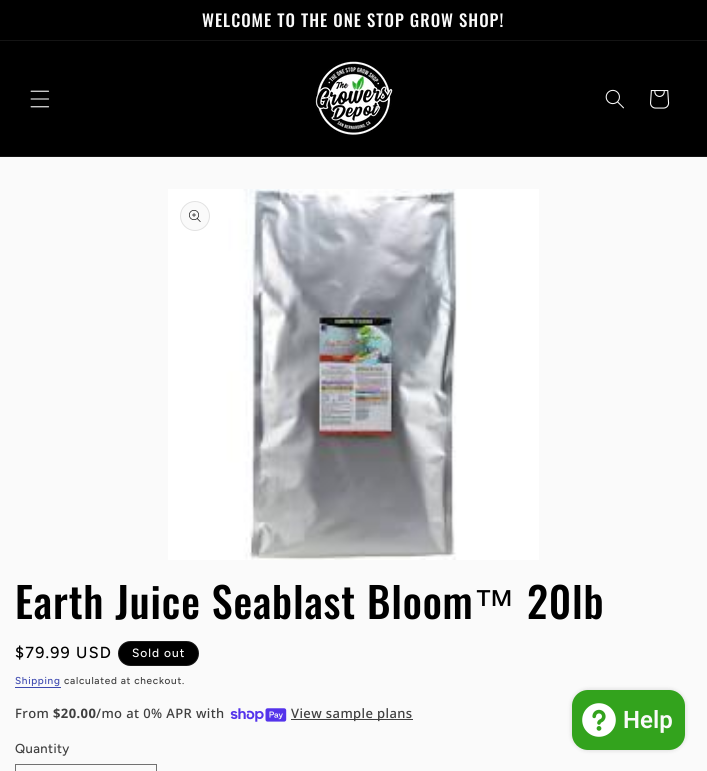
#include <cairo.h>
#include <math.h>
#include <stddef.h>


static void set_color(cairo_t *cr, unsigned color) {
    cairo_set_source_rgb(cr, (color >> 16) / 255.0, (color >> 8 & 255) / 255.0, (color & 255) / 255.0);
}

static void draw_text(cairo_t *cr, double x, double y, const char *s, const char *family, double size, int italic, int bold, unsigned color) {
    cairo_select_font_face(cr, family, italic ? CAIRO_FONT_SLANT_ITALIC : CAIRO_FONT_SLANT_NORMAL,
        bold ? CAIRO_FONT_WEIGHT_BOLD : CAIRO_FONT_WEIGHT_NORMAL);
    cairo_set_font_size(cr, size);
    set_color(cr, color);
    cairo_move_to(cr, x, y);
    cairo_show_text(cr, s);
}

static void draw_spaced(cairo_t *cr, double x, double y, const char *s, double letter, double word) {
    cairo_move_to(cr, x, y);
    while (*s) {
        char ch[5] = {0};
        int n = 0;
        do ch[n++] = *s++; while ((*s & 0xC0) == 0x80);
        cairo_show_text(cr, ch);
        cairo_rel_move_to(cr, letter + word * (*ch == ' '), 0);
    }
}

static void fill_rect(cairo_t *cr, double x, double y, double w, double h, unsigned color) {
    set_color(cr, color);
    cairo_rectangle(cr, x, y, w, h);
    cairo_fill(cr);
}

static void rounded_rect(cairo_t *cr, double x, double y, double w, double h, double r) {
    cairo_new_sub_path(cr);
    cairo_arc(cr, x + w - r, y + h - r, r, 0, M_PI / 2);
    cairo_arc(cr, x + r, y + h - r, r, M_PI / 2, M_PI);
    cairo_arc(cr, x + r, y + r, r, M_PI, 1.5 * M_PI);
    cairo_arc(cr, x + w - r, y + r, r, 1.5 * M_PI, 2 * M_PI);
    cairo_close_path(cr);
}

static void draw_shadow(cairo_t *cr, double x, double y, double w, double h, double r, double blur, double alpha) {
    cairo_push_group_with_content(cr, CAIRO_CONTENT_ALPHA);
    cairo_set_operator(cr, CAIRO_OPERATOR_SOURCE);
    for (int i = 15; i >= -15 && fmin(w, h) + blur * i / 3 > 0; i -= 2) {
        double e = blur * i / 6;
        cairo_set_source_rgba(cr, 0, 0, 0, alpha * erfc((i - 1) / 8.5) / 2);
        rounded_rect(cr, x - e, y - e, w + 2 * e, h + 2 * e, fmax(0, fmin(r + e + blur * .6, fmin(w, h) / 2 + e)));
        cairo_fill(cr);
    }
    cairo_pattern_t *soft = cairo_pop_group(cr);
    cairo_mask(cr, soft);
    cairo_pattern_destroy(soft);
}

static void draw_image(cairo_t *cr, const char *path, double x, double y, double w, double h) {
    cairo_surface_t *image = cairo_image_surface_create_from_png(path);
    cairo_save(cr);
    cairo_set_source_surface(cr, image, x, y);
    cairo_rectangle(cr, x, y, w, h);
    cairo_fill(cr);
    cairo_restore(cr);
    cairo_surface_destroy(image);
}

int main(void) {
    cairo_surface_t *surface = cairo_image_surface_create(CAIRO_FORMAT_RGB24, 707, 771);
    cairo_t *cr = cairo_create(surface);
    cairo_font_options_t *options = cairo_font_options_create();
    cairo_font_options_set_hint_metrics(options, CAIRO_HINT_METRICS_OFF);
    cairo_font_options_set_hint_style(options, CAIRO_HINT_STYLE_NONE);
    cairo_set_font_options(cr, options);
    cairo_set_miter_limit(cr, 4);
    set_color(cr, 0xFAFAFA);
    cairo_paint(cr);
    fill_rect(cr, 0, 0, 707, 40, 0x000000);
    fill_rect(cr, 0, 40, 707, 1, 0x141414);
    cairo_select_font_face(cr, "Oswald Medium", CAIRO_FONT_SLANT_NORMAL, CAIRO_FONT_WEIGHT_NORMAL);
    cairo_set_font_size(cr, 16.75);
    set_color(cr, 0xFAFAFA);
    draw_spaced(cr, 202, 27, "WELCOME TO THE ONE STOP GROW SHOP!", 1, 0);
    fill_rect(cr, 0, 41, 707, 115, 0x000000);
    fill_rect(cr, 0, 156, 707, 1, 0x141414);
    draw_image(cr, "assets/img1.png", 30, 90, 20, 18);
    draw_image(cr, "assets/img2.png", 315, 61, 78, 74);
    draw_image(cr, "assets/img3.png", 605, 89, 19, 20);
    draw_image(cr, "assets/img4.png", 650, 90, 20, 19);
    draw_image(cr, "assets/img5.png", 168, 189, 371, 371);
    set_color(cr, 0xFAFAFA);
    cairo_arc(cr, 195, 216, 14.5, 0, 2 * M_PI);
    cairo_fill_preserve(cr);
    set_color(cr, 0xE2E2E2);
    cairo_set_line_width(cr, 1);
    cairo_stroke(cr);
    draw_image(cr, "assets/img6.png", 189, 210, 12, 12);
    cairo_set_font_size(cr, 42);
    set_color(cr, 0x000000);
    draw_spaced(cr, 15, 619, "Earth Juice Seablast Bloom", 0.85, 0);
    cairo_select_font_face(cr, "Liberation Sans", CAIRO_FONT_SLANT_NORMAL, CAIRO_FONT_WEIGHT_NORMAL);
    draw_spaced(cr, 473, 619, "™", 0.85, 0);
    cairo_select_font_face(cr, "Oswald Medium", CAIRO_FONT_SLANT_NORMAL, CAIRO_FONT_WEIGHT_NORMAL);
    draw_spaced(cr, 527, 619, "20lb", 0.85, 0);
    cairo_select_font_face(cr, "Figtree Medium", CAIRO_FONT_SLANT_NORMAL, CAIRO_FONT_WEIGHT_NORMAL);
    cairo_set_font_size(cr, 16);
    draw_spaced(cr, 15, 658, "$79.99 USD", 1.25, 0);
    rounded_rect(cr, 118, 641, 81, 25, 12.5);
    cairo_fill(cr);
    rounded_rect(cr, 118.5, 641.5, 80, 24, 12);
    cairo_set_source_rgba(cr, 0.98, 0.98, 0.98, 0.1);
    cairo_stroke(cr);
    cairo_set_font_size(cr, 12);
    set_color(cr, 0xFAFAFA);
    draw_spaced(cr, 132, 657, "Sold out", 1, 0);
    cairo_set_font_size(cr, 10);
    set_color(cr, 0x3E4AB0);
    draw_spaced(cr, 15, 684, "Shipping", 0.7, 0);
    fill_rect(cr, 15, 687, 46, 1, 0x3E4AB0);
    set_color(cr, 0x3F3F3F);
    draw_spaced(cr, 64, 684, "calculated at checkout.", 0.7, 0);
    cairo_select_font_face(cr, "Noto Sans Medium", CAIRO_FONT_SLANT_NORMAL, CAIRO_FONT_WEIGHT_NORMAL);
    cairo_set_font_size(cr, 13);
    draw_spaced(cr, 15, 718, "From", 0.4, 0);
    cairo_select_font_face(cr, "Noto Sans", CAIRO_FONT_SLANT_NORMAL, CAIRO_FONT_WEIGHT_BOLD);
    draw_spaced(cr, 53, 718, "$20.00", 0.4, 0);
    cairo_select_font_face(cr, "Noto Sans Medium", CAIRO_FONT_SLANT_NORMAL, CAIRO_FONT_WEIGHT_NORMAL);
    draw_spaced(cr, 96, 718, "/mo at 0% APR with", 0.4, 0);
    draw_image(cr, "assets/img7.png", 230, 708, 57, 14);
    fill_rect(cr, 291, 719, 122, 1, 0x3F3F3F);
    draw_spaced(cr, 291, 718, "View sample plans", 0.4, 0);
    cairo_select_font_face(cr, "Figtree Medium", CAIRO_FONT_SLANT_NORMAL, CAIRO_FONT_WEIGHT_NORMAL);
    draw_spaced(cr, 15, 753, "Quantity", 0.4, 0);
    cairo_rectangle(cr, 15.5, 764.5, 141, 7);
    set_color(cr, 0x717171);
    cairo_stroke(cr);
    set_color(cr, 0x000000);
    draw_shadow(cr, 572, 690, 113, 60, 16, 2.5, 0.15);
    set_color(cr, 0x33A31D);
    rounded_rect(cr, 572, 690, 113, 60, 16);
    cairo_fill(cr);
    draw_image(cr, "assets/img8.png", 582, 703, 34, 34);
    draw_text(cr, 623, 728, "Help", "Roboto SemiBold", 24, 0, 0, 0xFAFAFA);
    cairo_surface_write_to_png(surface, "output.png");
    cairo_font_options_destroy(options);
    cairo_destroy(cr);
    cairo_surface_destroy(surface);
    return 0;
}
